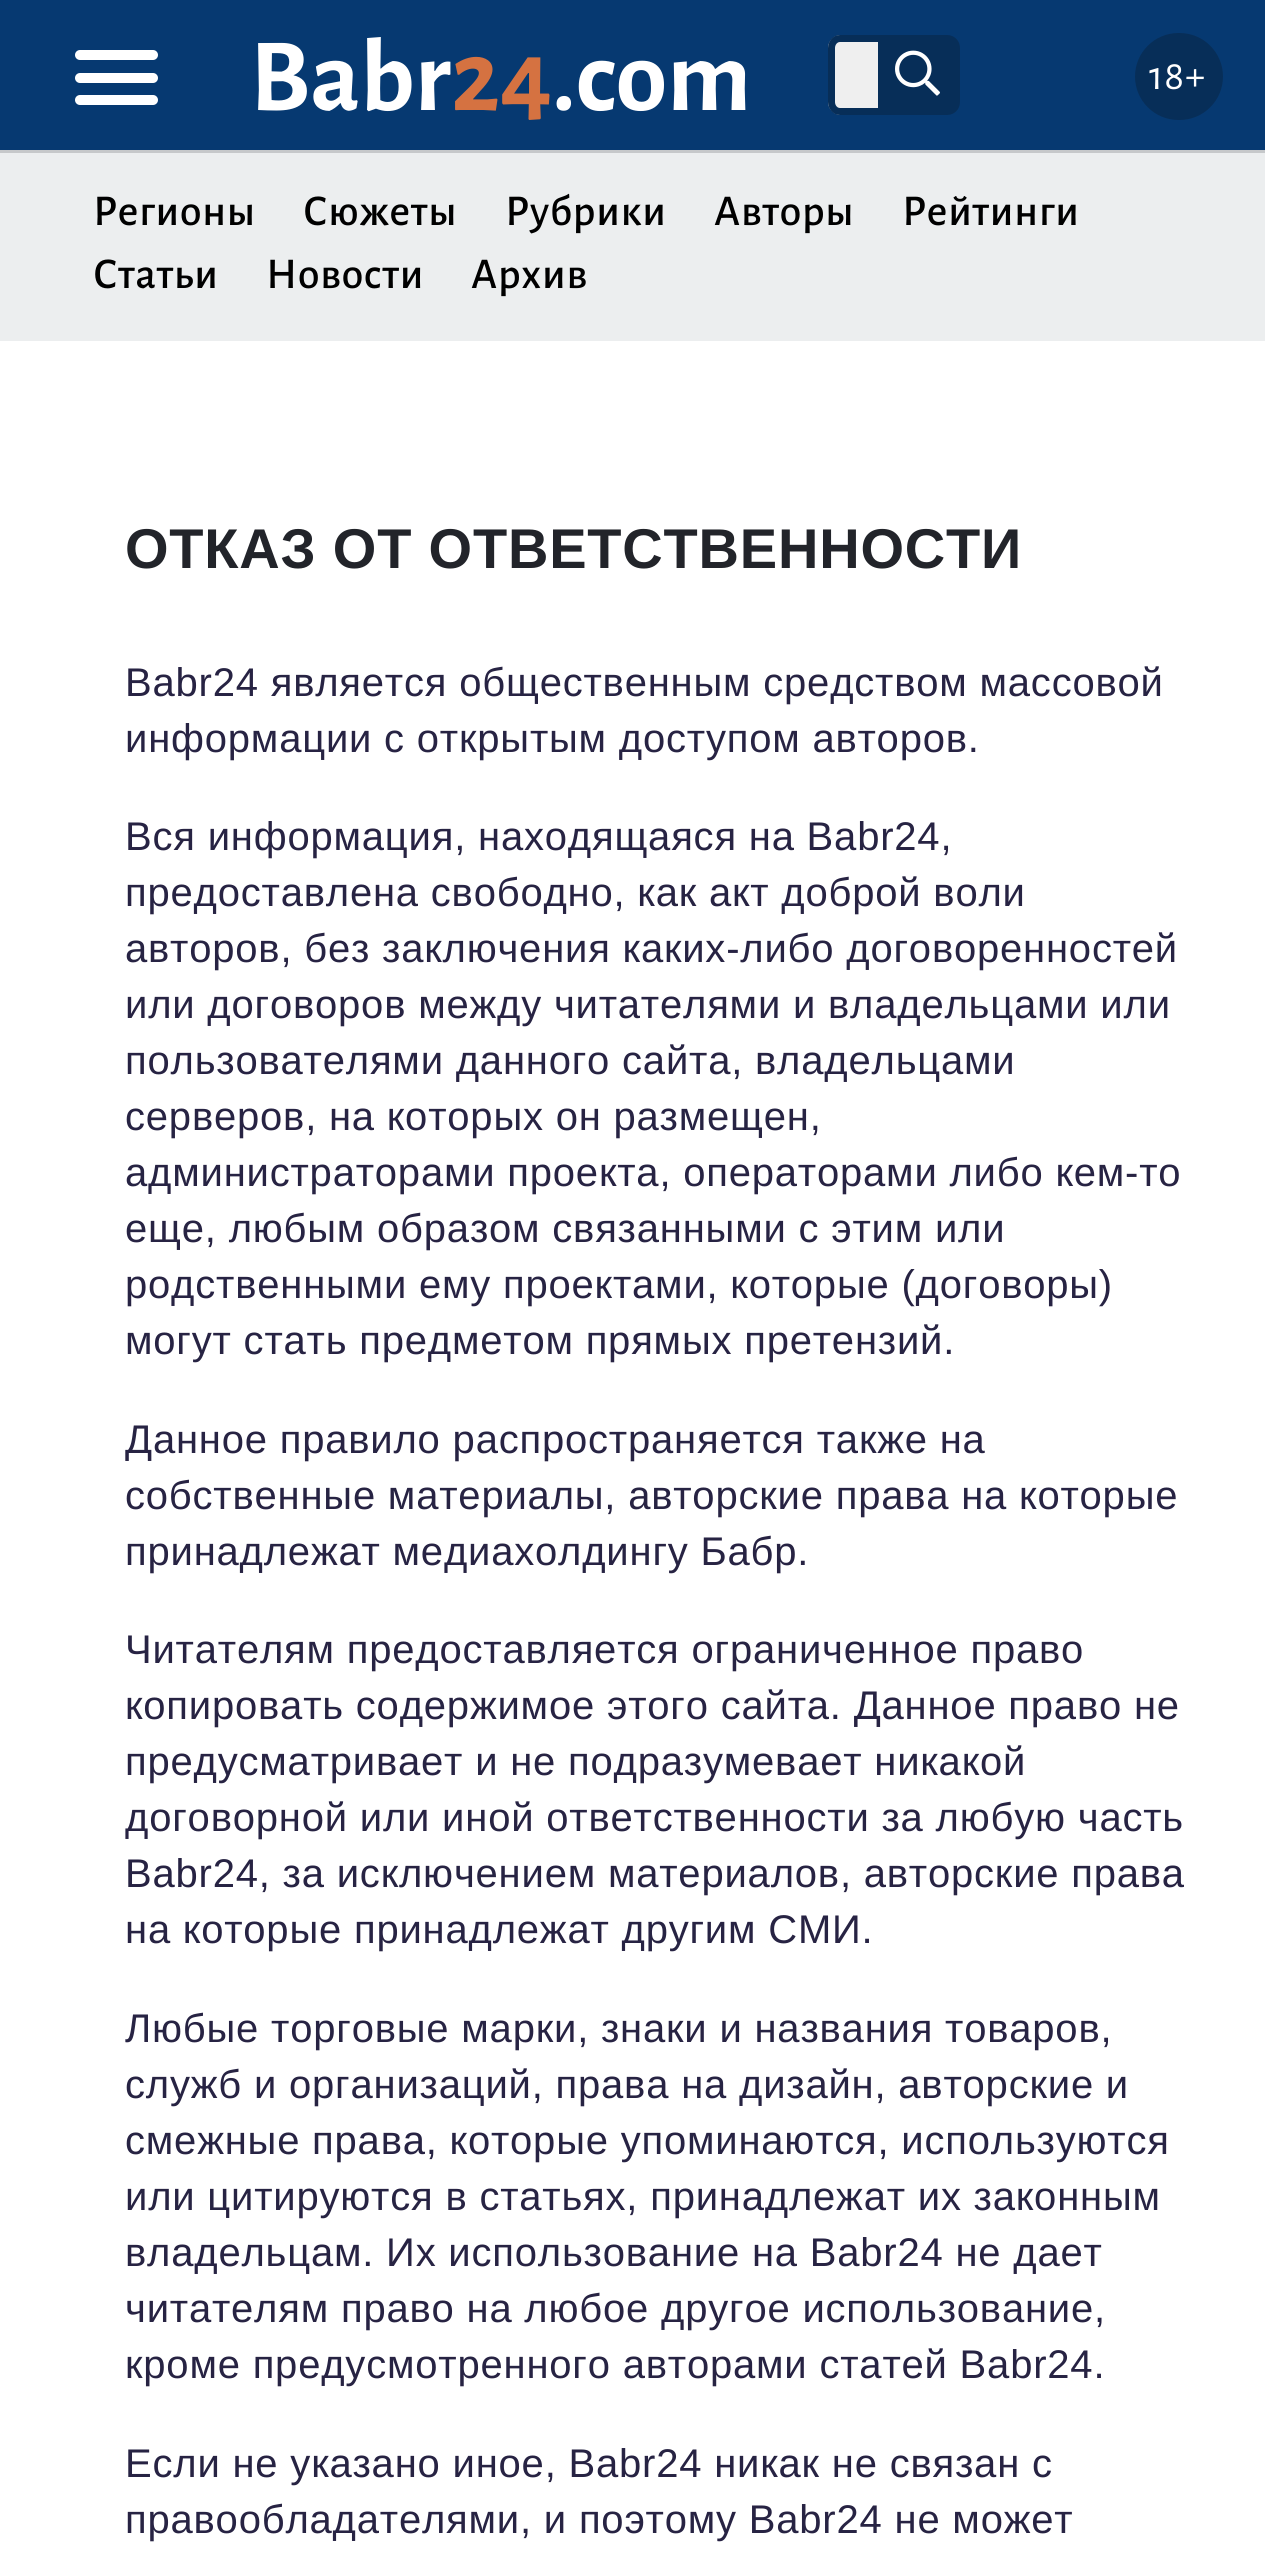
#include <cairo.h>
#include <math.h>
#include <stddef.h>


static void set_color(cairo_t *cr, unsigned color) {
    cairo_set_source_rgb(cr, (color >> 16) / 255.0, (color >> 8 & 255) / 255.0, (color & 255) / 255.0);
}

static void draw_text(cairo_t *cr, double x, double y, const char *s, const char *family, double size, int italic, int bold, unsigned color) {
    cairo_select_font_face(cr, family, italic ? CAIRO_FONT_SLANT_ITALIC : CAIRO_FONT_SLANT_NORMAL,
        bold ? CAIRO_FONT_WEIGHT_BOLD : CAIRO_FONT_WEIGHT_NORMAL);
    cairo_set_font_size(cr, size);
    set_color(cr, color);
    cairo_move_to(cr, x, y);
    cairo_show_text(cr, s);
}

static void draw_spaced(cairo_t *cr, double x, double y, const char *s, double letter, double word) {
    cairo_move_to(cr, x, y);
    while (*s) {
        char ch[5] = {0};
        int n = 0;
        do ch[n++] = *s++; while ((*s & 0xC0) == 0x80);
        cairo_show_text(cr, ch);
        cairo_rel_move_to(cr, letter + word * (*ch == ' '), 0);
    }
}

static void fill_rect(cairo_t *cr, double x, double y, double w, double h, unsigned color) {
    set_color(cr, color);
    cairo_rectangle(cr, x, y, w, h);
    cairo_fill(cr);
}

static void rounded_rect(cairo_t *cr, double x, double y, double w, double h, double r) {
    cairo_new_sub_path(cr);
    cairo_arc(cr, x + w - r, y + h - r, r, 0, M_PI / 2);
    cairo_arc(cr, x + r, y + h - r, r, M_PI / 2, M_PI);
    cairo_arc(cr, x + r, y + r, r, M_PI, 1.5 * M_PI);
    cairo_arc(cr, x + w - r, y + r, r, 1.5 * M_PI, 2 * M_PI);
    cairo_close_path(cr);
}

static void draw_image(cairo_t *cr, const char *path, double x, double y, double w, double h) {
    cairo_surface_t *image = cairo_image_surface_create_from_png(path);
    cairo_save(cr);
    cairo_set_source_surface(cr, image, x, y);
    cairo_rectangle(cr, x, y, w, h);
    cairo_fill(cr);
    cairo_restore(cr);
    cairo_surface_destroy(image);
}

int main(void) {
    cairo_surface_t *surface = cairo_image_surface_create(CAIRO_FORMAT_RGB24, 1265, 2551);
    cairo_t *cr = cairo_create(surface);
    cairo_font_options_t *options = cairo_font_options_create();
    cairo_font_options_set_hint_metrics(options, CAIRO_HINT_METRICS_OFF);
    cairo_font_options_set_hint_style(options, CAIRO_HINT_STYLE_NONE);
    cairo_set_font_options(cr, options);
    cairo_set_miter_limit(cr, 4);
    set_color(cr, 0xECEEEF);
    cairo_paint(cr);
    fill_rect(cr, 0, 0, 1265, 150, 0x063971);
    set_color(cr, 0xFFFFFF);
    rounded_rect(cr, 75, 50, 83, 10, 5);
    cairo_fill(cr);
    rounded_rect(cr, 75, 73, 83, 10, 5);
    cairo_fill(cr);
    rounded_rect(cr, 75, 95, 83, 10, 5);
    cairo_fill(cr);
    draw_text(cr, 250, 110, "Babr", "Alegreya Sans", 104, 0, 1, 0xFFFFFF);
    draw_text(cr, 451, 110, "24", "Alegreya Sans", 104, 0, 1, 0xD57241);
    draw_text(cr, 552, 110, ".com", "Alegreya Sans", 104, 0, 1, 0xFFFFFF);
    set_color(cr, 0xEFEFEF);
    cairo_new_path(cr);
    cairo_move_to(cr, 841, 35);
    cairo_line_to(cr, 878, 35);
    cairo_line_to(cr, 878, 115);
    cairo_line_to(cr, 841, 115);
    cairo_curve_to(cr, 834, 115, 828, 109, 828, 102);
    cairo_line_to(cr, 828, 48);
    cairo_curve_to(cr, 828, 41, 834, 35, 841, 35);
    cairo_close_path(cr);
    cairo_fill(cr);
    set_color(cr, 0x072E58);
    cairo_set_fill_rule(cr, CAIRO_FILL_RULE_EVEN_ODD);
    cairo_new_path(cr);
    cairo_move_to(cr, 840, 35);
    cairo_line_to(cr, 878, 35);
    cairo_line_to(cr, 878, 115);
    cairo_line_to(cr, 840, 115);
    cairo_curve_to(cr, 833, 115, 828, 109, 828, 102);
    cairo_line_to(cr, 828, 48);
    cairo_curve_to(cr, 828, 41, 833, 35, 840, 35);
    cairo_close_path(cr);
    cairo_move_to(cr, 840, 42);
    cairo_line_to(cr, 878, 42);
    cairo_line_to(cr, 878, 108);
    cairo_line_to(cr, 840, 108);
    cairo_curve_to(cr, 837, 108, 835, 105, 835, 102);
    cairo_line_to(cr, 835, 48);
    cairo_curve_to(cr, 835, 45, 837, 42, 840, 42);
    cairo_close_path(cr);
    cairo_fill(cr);
    cairo_new_path(cr);
    cairo_move_to(cr, 879.5, 36.5);
    cairo_line_to(cr, 947, 36.5);
    cairo_curve_to(cr, 953.5, 36.5, 958.5, 41.5, 958.5, 48);
    cairo_line_to(cr, 958.5, 102);
    cairo_curve_to(cr, 958.5, 108.5, 953.5, 113.5, 947, 113.5);
    cairo_line_to(cr, 879.5, 113.5);
    cairo_close_path(cr);
    cairo_fill_preserve(cr);
    cairo_set_line_width(cr, 3);
    cairo_stroke(cr);
    draw_image(cr, "assets/img1.png", 895, 50, 45, 46);
    rounded_rect(cr, 1135, 33, 88, 87, 43.5);
    cairo_fill(cr);
    cairo_select_font_face(cr, "Alegreya Sans", CAIRO_FONT_SLANT_NORMAL, CAIRO_FONT_WEIGHT_NORMAL);
    cairo_set_font_size(cr, 42);
    set_color(cr, 0xFFFFFF);
    draw_spaced(cr, 1149, 89, "18+", 0.8, 0);
    fill_rect(cr, 0, 150, 1265, 3, 0xC6C8CA);
    cairo_select_font_face(cr, "Alegreya Sans Medium", CAIRO_FONT_SLANT_NORMAL, CAIRO_FONT_WEIGHT_NORMAL);
    cairo_set_font_size(cr, 44);
    set_color(cr, 0x000000);
    draw_spaced(cr, 93, 225, "Регионы", 0.8, 0);
    draw_spaced(cr, 303, 225, "Сюжеты", 0.8, 0);
    draw_spaced(cr, 505, 225, "Рубрики", 0.8, 0);
    draw_spaced(cr, 714, 225, "Авторы", 0.8, 0);
    draw_spaced(cr, 902, 225, "Рейтинги", 0.8, 0);
    draw_spaced(cr, 93, 288, "Статьи", 0.8, 0);
    draw_spaced(cr, 266, 288, "Новости", 0.8, 0);
    draw_spaced(cr, 471, 288, "Архив", 0.8, 0);
    fill_rect(cr, 0, 341, 1265, 2210, 0xFFFFFF);
    cairo_select_font_face(cr, "Liberation Sans", CAIRO_FONT_SLANT_NORMAL, CAIRO_FONT_WEIGHT_BOLD);
    cairo_set_font_size(cr, 56);
    set_color(cr, 0x22242A);
    draw_spaced(cr, 125, 568, "ОТКАЗ ОТ ОТВЕТСТВЕННОСТИ", 0.8, 0);
    cairo_select_font_face(cr, "Liberation Sans", CAIRO_FONT_SLANT_NORMAL, CAIRO_FONT_WEIGHT_NORMAL);
    cairo_set_font_size(cr, 40);
    set_color(cr, 0x272343);
    draw_spaced(cr, 125, 696, "Babr24 является общественным средством массовой", 0.8, 0);
    draw_spaced(cr, 125, 752, "информации с открытым доступом авторов.", 0.8, 0);
    draw_spaced(cr, 125, 850, "Вся информация, находящаяся на Babr24,", 0.8, 0);
    draw_spaced(cr, 125, 906, "предоставлена свободно, как акт доброй воли", 0.8, 0);
    draw_spaced(cr, 125, 962, "авторов, без заключения каких-либо договоренностей", 0.8, 0);
    draw_spaced(cr, 125, 1018, "или договоров между читателями и владельцами или", 0.8, 0);
    draw_spaced(cr, 125, 1074, "пользователями данного сайта, владельцами", 0.8, 0);
    draw_spaced(cr, 125, 1130, "серверов, на которых он размещен,", 0.8, 0);
    draw_spaced(cr, 125, 1186, "администраторами проекта, операторами либо кем-то", 0.8, 0);
    draw_spaced(cr, 125, 1242, "еще, любым образом связанными с этим или", 0.8, 0);
    draw_spaced(cr, 125, 1298, "родственными ему проектами, которые (договоры)", 0.8, 0);
    draw_spaced(cr, 125, 1354, "могут стать предметом прямых претензий.", 0.8, 0);
    draw_spaced(cr, 125, 1453, "Данное правило распространяется также на", 0.8, 0);
    draw_spaced(cr, 125, 1509, "собственные материалы, авторские права на которые", 0.8, 0);
    draw_spaced(cr, 125, 1565, "принадлежат медиахолдингу Бабр.", 0.8, 0);
    draw_spaced(cr, 125, 1663, "Читателям предоставляется ограниченное право", 0.8, 0);
    draw_spaced(cr, 125, 1719, "копировать содержимое этого сайта. Данное право не", 0.8, 0);
    draw_spaced(cr, 125, 1775, "предусматривает и не подразумевает никакой", 0.8, 0);
    draw_spaced(cr, 125, 1831, "договорной или иной ответственности за любую часть", 0.8, 0);
    draw_spaced(cr, 125, 1887, "Babr24, за исключением материалов, авторские права", 0.8, 0);
    draw_spaced(cr, 125, 1943, "на которые принадлежат другим СМИ.", 0.8, 0);
    draw_spaced(cr, 125, 2042, "Любые торговые марки, знаки и названия товаров,", 0.8, 0);
    draw_spaced(cr, 125, 2098, "служб и организаций, права на дизайн, авторские и", 0.8, 0);
    draw_spaced(cr, 125, 2154, "смежные права, которые упоминаются, используются", 0.8, 0);
    draw_spaced(cr, 125, 2210, "или цитируются в статьях, принадлежат их законным", 0.8, 0);
    draw_spaced(cr, 125, 2266, "владельцам. Их использование на Babr24 не дает", 0.8, 0);
    draw_spaced(cr, 125, 2322, "читателям право на любое другое использование,", 0.8, 0);
    draw_spaced(cr, 125, 2378, "кроме предусмотренного авторами статей Babr24.", 0.8, 0);
    draw_spaced(cr, 125, 2477, "Если не указано иное, Babr24 никак не связан с", 0.8, 0);
    draw_spaced(cr, 125, 2533, "правообладателями, и поэтому Babr24 не может", 0.8, 0);
    cairo_surface_write_to_png(surface, "output.png");
    cairo_font_options_destroy(options);
    cairo_destroy(cr);
    cairo_surface_destroy(surface);
    return 0;
}
